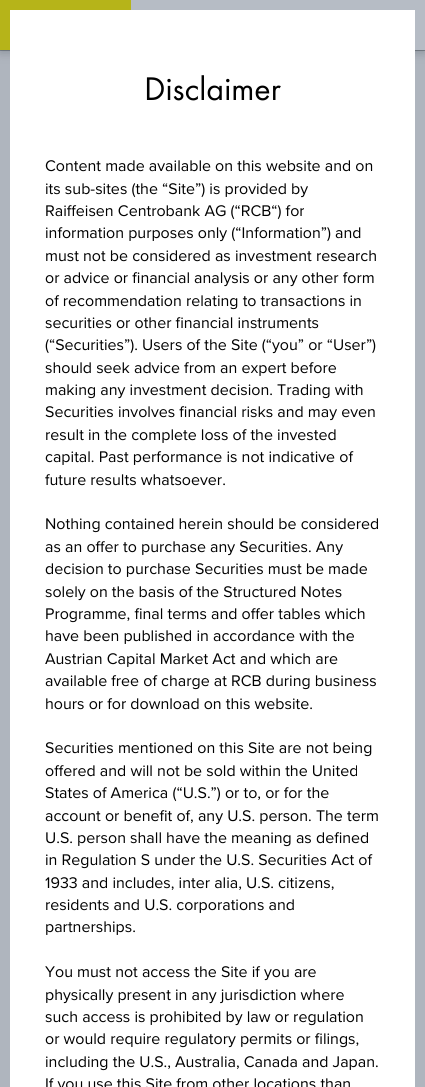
#include <cairo.h>
#include <math.h>
#include <stddef.h>


static void set_color(cairo_t *cr, unsigned color) {
    cairo_set_source_rgb(cr, (color >> 16) / 255.0, (color >> 8 & 255) / 255.0, (color & 255) / 255.0);
}

static void draw_text(cairo_t *cr, double x, double y, const char *s, const char *family, double size, int italic, int bold, unsigned color) {
    cairo_select_font_face(cr, family, italic ? CAIRO_FONT_SLANT_ITALIC : CAIRO_FONT_SLANT_NORMAL,
        bold ? CAIRO_FONT_WEIGHT_BOLD : CAIRO_FONT_WEIGHT_NORMAL);
    cairo_set_font_size(cr, size);
    set_color(cr, color);
    cairo_move_to(cr, x, y);
    cairo_show_text(cr, s);
}

static void fill_rect(cairo_t *cr, double x, double y, double w, double h, unsigned color) {
    set_color(cr, color);
    cairo_rectangle(cr, x, y, w, h);
    cairo_fill(cr);
}

static void rounded_rect(cairo_t *cr, double x, double y, double w, double h, double r) {
    cairo_new_sub_path(cr);
    cairo_arc(cr, x + w - r, y + h - r, r, 0, M_PI / 2);
    cairo_arc(cr, x + r, y + h - r, r, M_PI / 2, M_PI);
    cairo_arc(cr, x + r, y + r, r, M_PI, 1.5 * M_PI);
    cairo_arc(cr, x + w - r, y + r, r, 1.5 * M_PI, 2 * M_PI);
    cairo_close_path(cr);
}

static void draw_shadow(cairo_t *cr, double x, double y, double w, double h, double r, double blur, double alpha) {
    cairo_push_group_with_content(cr, CAIRO_CONTENT_ALPHA);
    cairo_set_operator(cr, CAIRO_OPERATOR_SOURCE);
    for (int i = 15; i >= -15 && fmin(w, h) + blur * i / 3 > 0; i -= 2) {
        double e = blur * i / 6;
        cairo_set_source_rgba(cr, 0, 0, 0, alpha * erfc((i - 1) / 8.5) / 2);
        rounded_rect(cr, x - e, y - e, w + 2 * e, h + 2 * e, fmax(0, fmin(r + e + blur * .6, fmin(w, h) / 2 + e)));
        cairo_fill(cr);
    }
    cairo_pattern_t *soft = cairo_pop_group(cr);
    cairo_mask(cr, soft);
    cairo_pattern_destroy(soft);
}

int main(void) {
    cairo_surface_t *surface = cairo_image_surface_create(CAIRO_FORMAT_RGB24, 425, 1087);
    cairo_t *cr = cairo_create(surface);
    cairo_font_options_t *options = cairo_font_options_create();
    cairo_font_options_set_hint_metrics(options, CAIRO_HINT_METRICS_OFF);
    cairo_font_options_set_hint_style(options, CAIRO_HINT_STYLE_NONE);
    cairo_set_font_options(cr, options);
    cairo_set_miter_limit(cr, 4);
    set_color(cr, 0xAFB5BE);
    cairo_paint(cr);
    fill_rect(cr, 0, 50, 425, 1, 0x80878F);
    set_color(cr, 0x030A12);
    draw_shadow(cr, 0, 3, 425, 50, 0, 5, 0.2);
    fill_rect(cr, 131, 0, 294, 50, 0xB6BCC5);
    fill_rect(cr, 0, 0, 131, 50, 0xB6B419);
    fill_rect(cr, 10, 10, 405, 1077, 0xFFFFFF);
    draw_text(cr, 144, 100, "Disclaimer", "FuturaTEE", 34, 0, 0, 0x000000);
    draw_text(cr, 45, 171, "Content made available on this website and on", "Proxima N", 16, 0, 0, 0x000000);
    draw_text(cr, 45, 194, "its sub-sites (the “Site”) is provided by", "Proxima N", 16, 0, 0, 0x000000);
    draw_text(cr, 45, 216, "Raiffeisen Centrobank AG (“RCB“) for", "Proxima N", 16, 0, 0, 0x000000);
    draw_text(cr, 45, 238, "information purposes only (“Information”) and", "Proxima N", 16, 0, 0, 0x000000);
    draw_text(cr, 45, 261, "must not be considered as investment research", "Proxima N", 16, 0, 0, 0x000000);
    draw_text(cr, 45, 283, "or advice or financial analysis or any other form", "Proxima N", 16, 0, 0, 0x000000);
    draw_text(cr, 45, 306, "of recommendation relating to transactions in", "Proxima N", 16, 0, 0, 0x000000);
    draw_text(cr, 45, 328, "securities or other financial instruments", "Proxima N", 16, 0, 0, 0x000000);
    draw_text(cr, 45, 350, "(“Securities”). Users of the Site (“you” or “User”)", "Proxima N", 16, 0, 0, 0x000000);
    draw_text(cr, 45, 373, "should seek advice from an expert before", "Proxima N", 16, 0, 0, 0x000000);
    draw_text(cr, 45, 395, "making any investment decision. Trading with", "Proxima N", 16, 0, 0, 0x000000);
    draw_text(cr, 45, 417, "Securities involves financial risks and may even", "Proxima N", 16, 0, 0, 0x000000);
    draw_text(cr, 45, 440, "result in the complete loss of the invested", "Proxima N", 16, 0, 0, 0x000000);
    draw_text(cr, 45, 462, "capital. Past performance is not indicative of", "Proxima N", 16, 0, 0, 0x000000);
    draw_text(cr, 45, 485, "future results whatsoever.", "Proxima N", 16, 0, 0, 0x000000);
    draw_text(cr, 45, 529, "Nothing contained herein should be considered", "Proxima N", 16, 0, 0, 0x000000);
    draw_text(cr, 45, 552, "as an offer to purchase any Securities. Any", "Proxima N", 16, 0, 0, 0x000000);
    draw_text(cr, 45, 574, "decision to purchase Securities must be made", "Proxima N", 16, 0, 0, 0x000000);
    draw_text(cr, 45, 597, "solely on the basis of the Structured Notes", "Proxima N", 16, 0, 0, 0x000000);
    draw_text(cr, 45, 619, "Programme, final terms and offer tables which", "Proxima N", 16, 0, 0, 0x000000);
    draw_text(cr, 45, 641, "have been published in accordance with the", "Proxima N", 16, 0, 0, 0x000000);
    draw_text(cr, 45, 664, "Austrian Capital Market Act and which are", "Proxima N", 16, 0, 0, 0x000000);
    draw_text(cr, 45, 686, "available free of charge at RCB during business", "Proxima N", 16, 0, 0, 0x000000);
    draw_text(cr, 45, 709, "hours or for download on this website.", "Proxima N", 16, 0, 0, 0x000000);
    draw_text(cr, 45, 753, "Securities mentioned on this Site are not being", "Proxima N", 16, 0, 0, 0x000000);
    draw_text(cr, 45, 776, "offered and will not be sold within the United", "Proxima N", 16, 0, 0, 0x000000);
    draw_text(cr, 45, 798, "States of America (“U.S.”) or to, or for the", "Proxima N", 16, 0, 0, 0x000000);
    draw_text(cr, 45, 821, "account or benefit of, any U.S. person. The term", "Proxima N", 16, 0, 0, 0x000000);
    draw_text(cr, 45, 843, "U.S. person shall have the meaning as defined", "Proxima N", 16, 0, 0, 0x000000);
    draw_text(cr, 45, 865, "in Regulation S under the U.S. Securities Act of", "Proxima N", 16, 0, 0, 0x000000);
    draw_text(cr, 45, 888, "1933 and includes, inter alia, U.S. citizens,", "Proxima N", 16, 0, 0, 0x000000);
    draw_text(cr, 45, 910, "residents and U.S. corporations and", "Proxima N", 16, 0, 0, 0x000000);
    draw_text(cr, 45, 932, "partnerships.", "Proxima N", 16, 0, 0, 0x000000);
    draw_text(cr, 45, 977, "You must not access the Site if you are", "Proxima N", 16, 0, 0, 0x000000);
    draw_text(cr, 45, 1000, "physically present in any jurisdiction where", "Proxima N", 16, 0, 0, 0x000000);
    draw_text(cr, 45, 1022, "such access is prohibited by law or regulation", "Proxima N", 16, 0, 0, 0x000000);
    draw_text(cr, 45, 1044, "or would require regulatory permits or filings,", "Proxima N", 16, 0, 0, 0x000000);
    draw_text(cr, 45, 1067, "including the U.S., Australia, Canada and Japan.", "Proxima N", 16, 0, 0, 0x000000);
    draw_text(cr, 45, 1089, "If you use this Site from other locations than", "Proxima N", 16, 0, 0, 0x000000);
    cairo_surface_write_to_png(surface, "output.png");
    cairo_font_options_destroy(options);
    cairo_destroy(cr);
    cairo_surface_destroy(surface);
    return 0;
}
